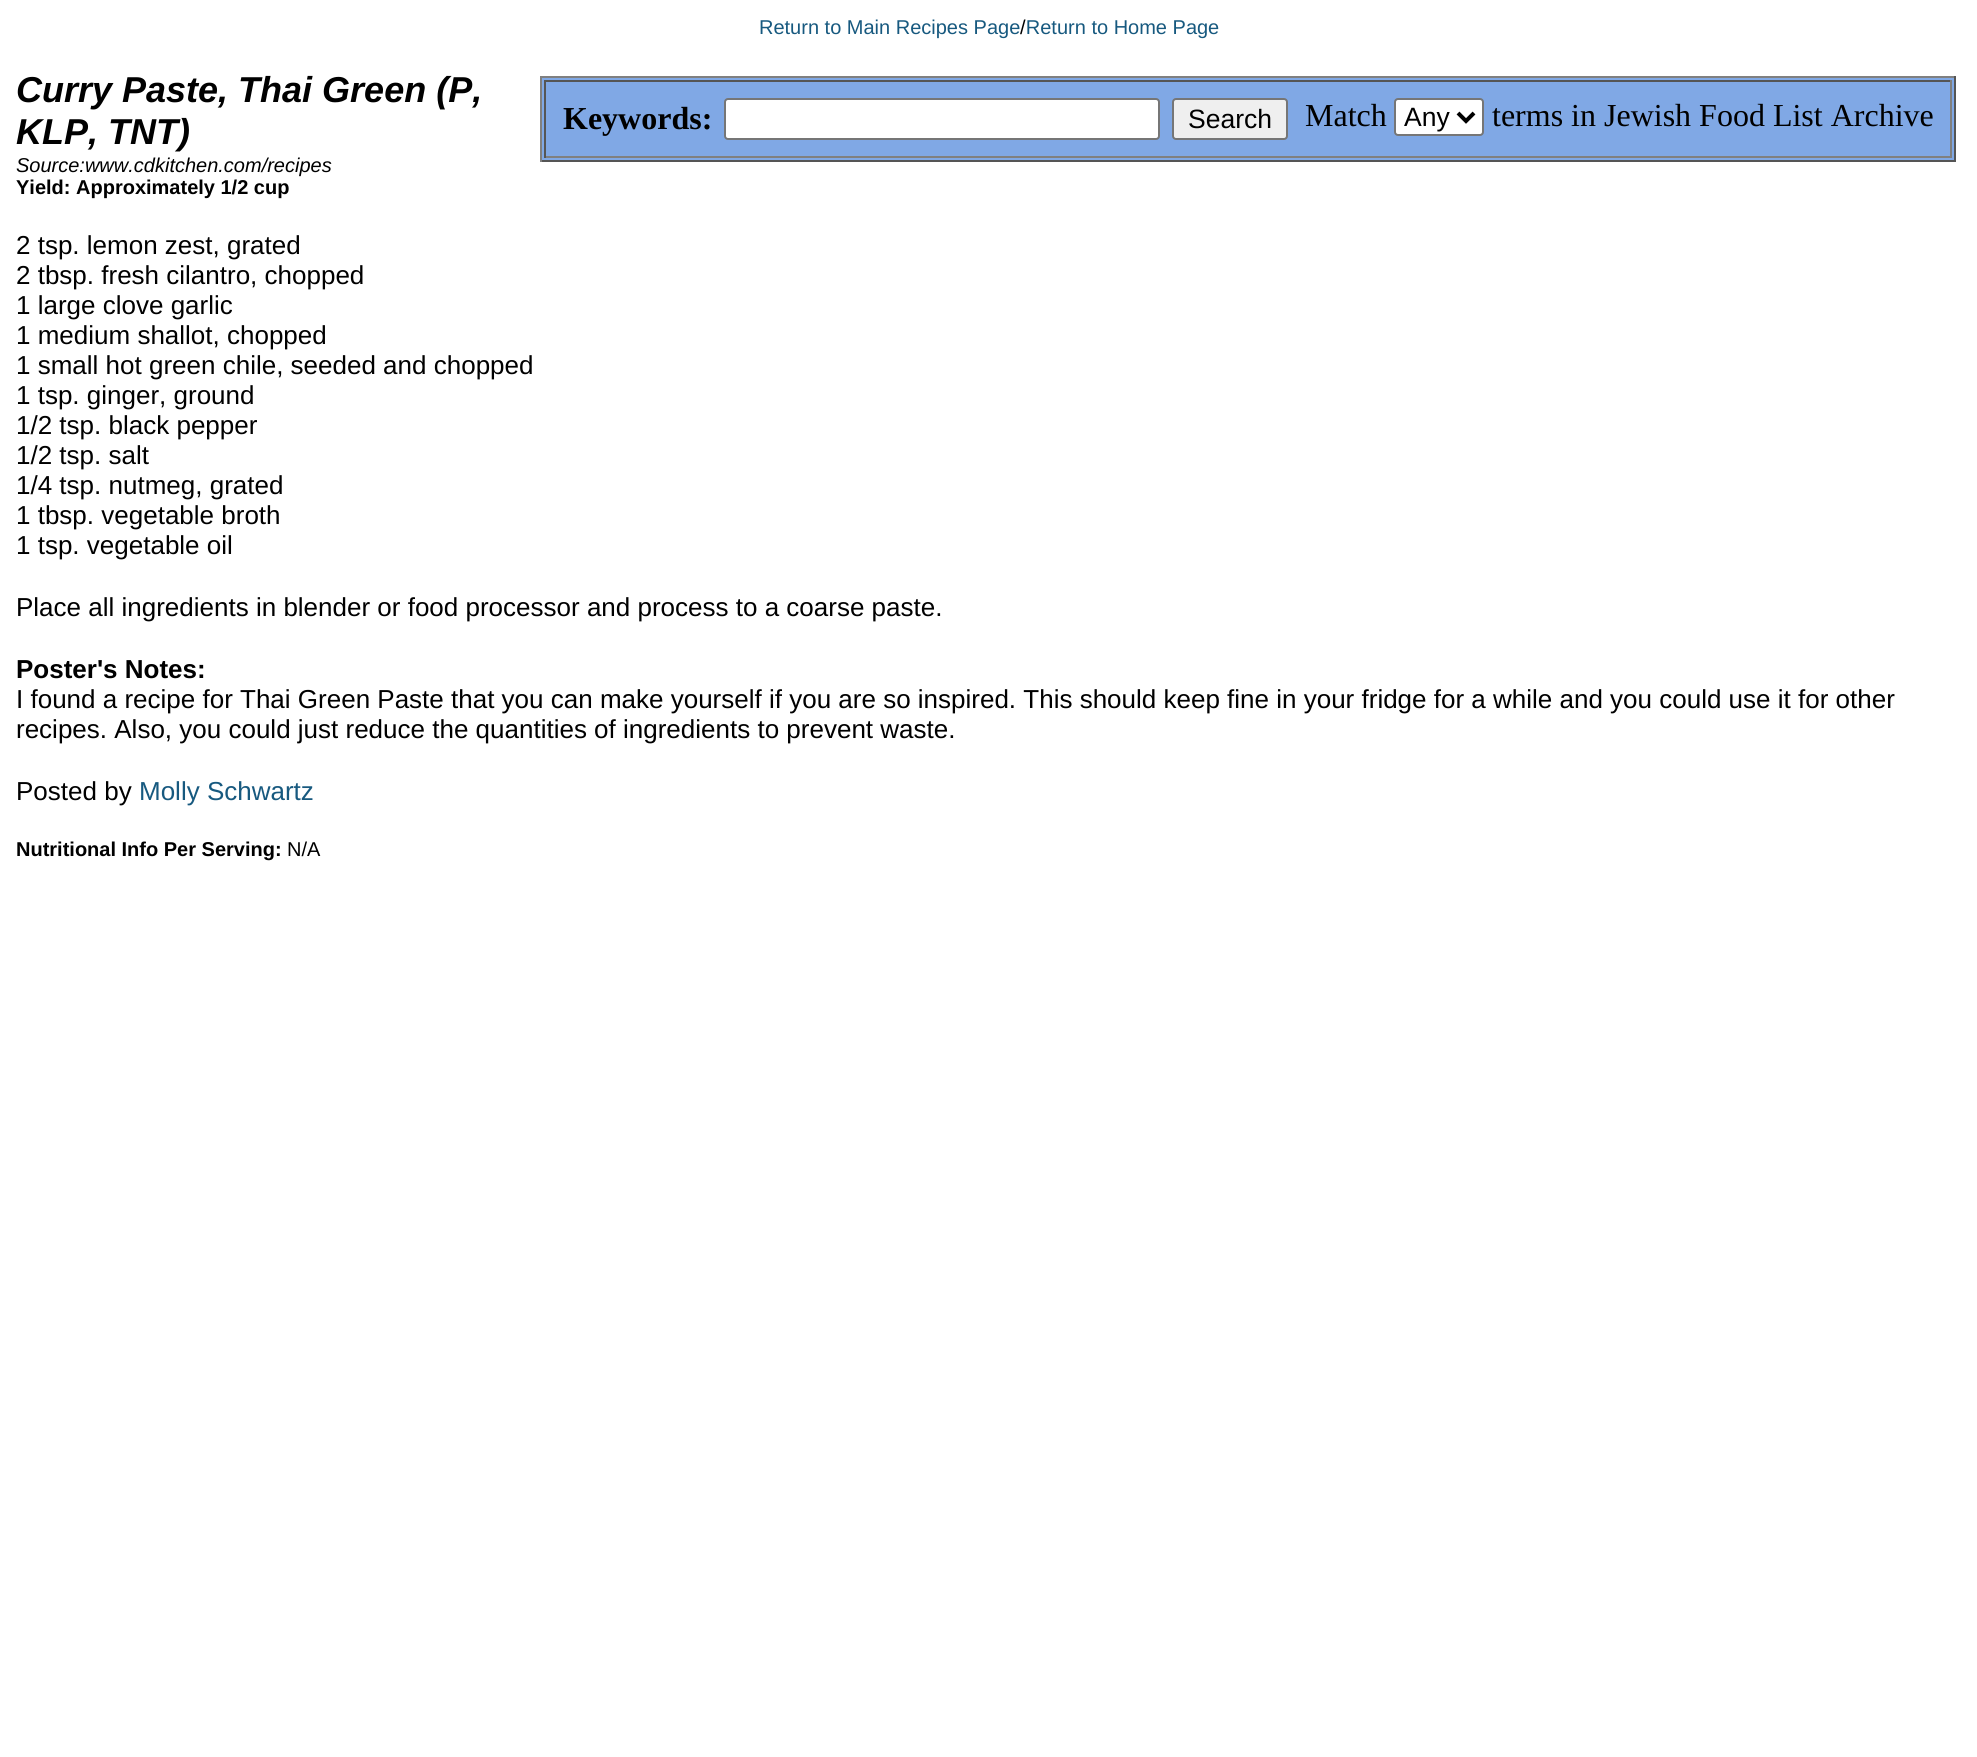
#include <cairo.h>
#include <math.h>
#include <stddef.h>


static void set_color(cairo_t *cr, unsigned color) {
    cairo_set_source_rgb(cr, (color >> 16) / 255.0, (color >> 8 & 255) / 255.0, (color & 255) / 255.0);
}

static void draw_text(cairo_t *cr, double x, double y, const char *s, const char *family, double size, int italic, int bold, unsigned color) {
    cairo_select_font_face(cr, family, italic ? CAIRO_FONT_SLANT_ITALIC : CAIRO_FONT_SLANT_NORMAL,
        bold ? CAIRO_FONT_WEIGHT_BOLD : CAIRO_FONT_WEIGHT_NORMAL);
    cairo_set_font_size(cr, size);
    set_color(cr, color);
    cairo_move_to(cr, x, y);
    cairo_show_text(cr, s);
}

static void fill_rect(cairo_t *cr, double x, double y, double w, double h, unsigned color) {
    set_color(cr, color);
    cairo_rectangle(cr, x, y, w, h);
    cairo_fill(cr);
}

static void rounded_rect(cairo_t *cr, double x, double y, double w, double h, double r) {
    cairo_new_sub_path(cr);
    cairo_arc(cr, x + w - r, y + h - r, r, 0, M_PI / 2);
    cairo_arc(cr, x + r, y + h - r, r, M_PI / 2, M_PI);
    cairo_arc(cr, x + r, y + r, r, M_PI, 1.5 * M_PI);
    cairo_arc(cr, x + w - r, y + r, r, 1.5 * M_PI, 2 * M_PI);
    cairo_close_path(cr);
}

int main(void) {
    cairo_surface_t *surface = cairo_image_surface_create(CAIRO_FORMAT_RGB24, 1977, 1757);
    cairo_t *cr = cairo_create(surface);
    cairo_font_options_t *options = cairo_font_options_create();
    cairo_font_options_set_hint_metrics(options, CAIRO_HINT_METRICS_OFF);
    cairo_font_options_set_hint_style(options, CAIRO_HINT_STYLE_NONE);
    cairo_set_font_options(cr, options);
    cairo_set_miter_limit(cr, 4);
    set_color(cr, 0xFFFFFF);
    cairo_paint(cr);
    draw_text(cr, 759, 34, "Return to Main Recipes Page Return to Home Page", "Liberation Sans", 20, 0, 0, 0x17597F);
    draw_text(cr, 1020, 34, "/", "Liberation Sans", 20, 0, 0, 0x000000);
    draw_text(cr, 16, 102, "Curry Paste, Thai Green (P,", "Liberation Sans", 36, 1, 1, 0x000000);
    draw_text(cr, 16, 144, "KLP, TNT)", "Liberation Sans", 36, 1, 1, 0x000000);
    fill_rect(cr, 542, 78, 1412, 82, 0x80A8E5);
    fill_rect(cr, 540, 76, 1416, 2, 0x808080);
    fill_rect(cr, 1954, 76, 2, 86, 0x555555);
    fill_rect(cr, 540, 160, 1416, 2, 0x555555);
    fill_rect(cr, 540, 76, 2, 86, 0x808080);
    fill_rect(cr, 544, 80, 1408, 2, 0x555555);
    fill_rect(cr, 1950, 80, 2, 78, 0x808080);
    fill_rect(cr, 544, 156, 1408, 2, 0x808080);
    fill_rect(cr, 544, 80, 2, 78, 0x555555);
    draw_text(cr, 563, 129, "Keywords:", "Liberation Serif", 32, 0, 1, 0x000000);
    set_color(cr, 0xFFFFFF);
    rounded_rect(cr, 725, 99, 434, 40, 3);
    cairo_fill_preserve(cr);
    set_color(cr, 0x767676);
    cairo_stroke(cr);
    set_color(cr, 0xEFEFEF);
    rounded_rect(cr, 1173, 99, 114, 40, 3);
    cairo_fill_preserve(cr);
    set_color(cr, 0x767676);
    cairo_stroke(cr);
    draw_text(cr, 1188, 128, "Search", "Liberation Sans", 26.5, 0, 0, 0x000000);
    draw_text(cr, 1305, 126, "Match", "Liberation Serif", 32, 0, 0, 0x000000);
    set_color(cr, 0xFFFFFF);
    rounded_rect(cr, 1395, 99, 88, 36, 3);
    cairo_fill_preserve(cr);
    set_color(cr, 0x767676);
    cairo_stroke(cr);
    cairo_new_path(cr);
    cairo_move_to(cr, 1458, 113);
    cairo_line_to(cr, 1466, 121);
    cairo_line_to(cr, 1474, 113);
    set_color(cr, 0x000000);
    cairo_set_line_width(cr, 4);
    cairo_stroke(cr);
    draw_text(cr, 1404, 126, "Any", "Liberation Sans", 26.5, 0, 0, 0x000000);
    draw_text(cr, 1492, 126, "terms in Jewish Food List Archive", "Liberation Serif", 32, 0, 0, 0x000000);
    draw_text(cr, 16, 172, "Source:www.cdkitchen.com/recipes", "Liberation Sans", 20, 1, 0, 0x000000);
    draw_text(cr, 16, 194, "Yield: Approximately 1/2 cup", "Liberation Sans", 20, 0, 1, 0x000000);
    draw_text(cr, 16, 254, "2 tsp. lemon zest, grated", "Liberation Sans", 26, 0, 0, 0x000000);
    draw_text(cr, 16, 284, "2 tbsp. fresh cilantro, chopped", "Liberation Sans", 26, 0, 0, 0x000000);
    draw_text(cr, 16, 314, "1 large clove garlic", "Liberation Sans", 26, 0, 0, 0x000000);
    draw_text(cr, 16, 344, "1 medium shallot, chopped", "Liberation Sans", 26, 0, 0, 0x000000);
    draw_text(cr, 16, 374, "1 small hot green chile, seeded and chopped", "Liberation Sans", 26, 0, 0, 0x000000);
    draw_text(cr, 16, 404, "1 tsp. ginger, ground", "Liberation Sans", 26, 0, 0, 0x000000);
    draw_text(cr, 16, 434, "1/2 tsp. black pepper", "Liberation Sans", 26, 0, 0, 0x000000);
    draw_text(cr, 16, 464, "1/2 tsp. salt", "Liberation Sans", 26, 0, 0, 0x000000);
    draw_text(cr, 16, 494, "1/4 tsp. nutmeg, grated", "Liberation Sans", 26, 0, 0, 0x000000);
    draw_text(cr, 16, 524, "1 tbsp. vegetable broth", "Liberation Sans", 26, 0, 0, 0x000000);
    draw_text(cr, 16, 554, "1 tsp. vegetable oil", "Liberation Sans", 26, 0, 0, 0x000000);
    draw_text(cr, 16, 616, "Place all ingredients in blender or food processor and process to a coarse paste.", "Liberation Sans", 26, 0, 0, 0x000000);
    draw_text(cr, 16, 678, "Poster's Notes:", "Liberation Sans", 26, 0, 1, 0x000000);
    draw_text(cr, 16, 708, "I found a recipe for Thai Green Paste that you can make yourself if you are so inspired. This should keep fine in your fridge for a while and you could use it for other", "Liberation Sans", 26, 0, 0, 0x000000);
    draw_text(cr, 16, 738, "recipes. Also, you could just reduce the quantities of ingredients to prevent waste.", "Liberation Sans", 26, 0, 0, 0x000000);
    draw_text(cr, 16, 800, "Posted by", "Liberation Sans", 26, 0, 0, 0x000000);
    draw_text(cr, 139, 800, "Molly Schwartz", "Liberation Sans", 26, 0, 0, 0x17597F);
    draw_text(cr, 16, 856, "Nutritional Info Per Serving:", "Liberation Sans", 20, 0, 1, 0x000000);
    draw_text(cr, 287, 856, "N/A", "Liberation Sans", 20, 0, 0, 0x000000);
    cairo_surface_write_to_png(surface, "output.png");
    cairo_font_options_destroy(options);
    cairo_destroy(cr);
    cairo_surface_destroy(surface);
    return 0;
}
